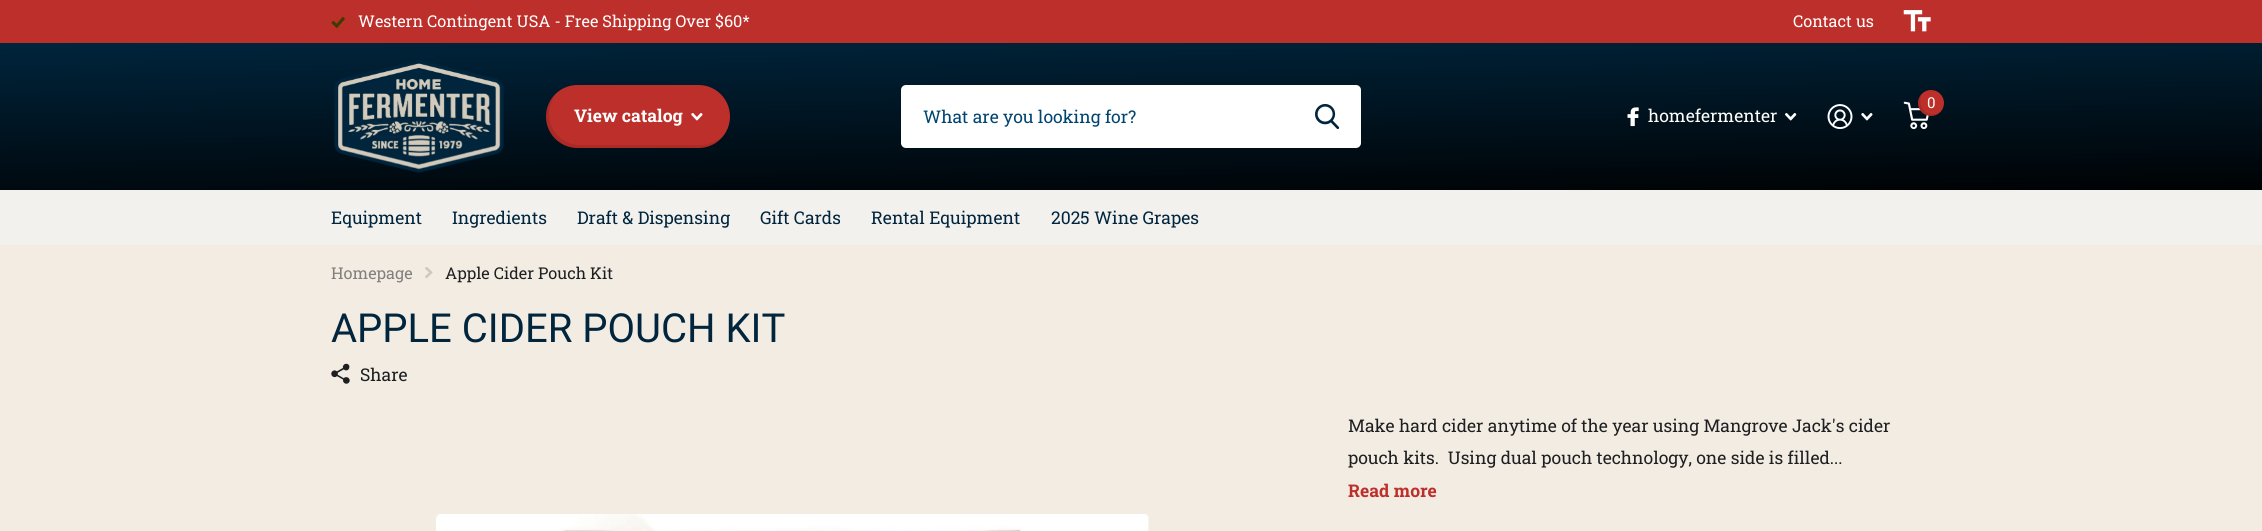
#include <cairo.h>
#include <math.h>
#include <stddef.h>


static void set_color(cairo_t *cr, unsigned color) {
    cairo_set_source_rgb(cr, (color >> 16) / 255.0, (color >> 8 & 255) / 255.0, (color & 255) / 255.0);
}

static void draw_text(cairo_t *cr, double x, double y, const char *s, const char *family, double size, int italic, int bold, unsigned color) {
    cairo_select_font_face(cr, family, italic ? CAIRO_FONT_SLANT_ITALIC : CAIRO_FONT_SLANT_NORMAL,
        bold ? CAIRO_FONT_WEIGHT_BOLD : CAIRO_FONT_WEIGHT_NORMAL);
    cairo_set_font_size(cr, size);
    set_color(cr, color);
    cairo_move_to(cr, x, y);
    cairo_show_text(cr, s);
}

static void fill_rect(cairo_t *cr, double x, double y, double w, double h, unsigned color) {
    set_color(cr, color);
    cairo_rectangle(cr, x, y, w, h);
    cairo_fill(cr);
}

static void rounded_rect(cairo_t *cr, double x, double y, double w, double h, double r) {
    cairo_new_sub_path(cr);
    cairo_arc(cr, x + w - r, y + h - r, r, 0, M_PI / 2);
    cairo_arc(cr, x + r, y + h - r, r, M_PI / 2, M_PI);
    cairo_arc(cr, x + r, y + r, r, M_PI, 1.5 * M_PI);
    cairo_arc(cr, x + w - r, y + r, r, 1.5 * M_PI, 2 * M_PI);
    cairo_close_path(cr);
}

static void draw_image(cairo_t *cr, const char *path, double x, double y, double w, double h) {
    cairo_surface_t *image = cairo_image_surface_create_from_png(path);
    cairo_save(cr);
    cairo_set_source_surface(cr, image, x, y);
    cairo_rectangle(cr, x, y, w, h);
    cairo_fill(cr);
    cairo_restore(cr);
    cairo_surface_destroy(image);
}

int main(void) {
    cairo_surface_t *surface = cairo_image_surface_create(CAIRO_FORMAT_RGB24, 2262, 531);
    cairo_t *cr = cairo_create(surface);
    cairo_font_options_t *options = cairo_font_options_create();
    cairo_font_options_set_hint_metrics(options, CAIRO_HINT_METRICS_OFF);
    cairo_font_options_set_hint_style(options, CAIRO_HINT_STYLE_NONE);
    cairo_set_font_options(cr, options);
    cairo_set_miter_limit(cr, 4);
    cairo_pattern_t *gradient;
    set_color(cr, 0xF2ECE3);
    cairo_paint(cr);
    fill_rect(cr, 0, 0, 2262, 43, 0xBD2F2A);
    draw_image(cr, "assets/img1.png", 331, 16, 14, 13);
    draw_text(cr, 358, 27, "Western Contingent USA - Free Shipping Over $60*", "Roboto Slab", 16.25, 0, 0, 0xFFFFFF);
    draw_text(cr, 1793, 27, "Contact us", "Roboto Slab", 16.25, 0, 0, 0xFFFFFF);
    draw_image(cr, "assets/img2.png", 1903, 10, 28, 22);
    gradient = cairo_pattern_create_linear(1129, -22, 1134, 265);
    cairo_pattern_add_color_stop_rgba(gradient, 0.15, 0, 0.145, 0.239, 1);
    cairo_pattern_add_color_stop_rgba(gradient, 0.85, 0, 0, 0, 1);
    cairo_pattern_add_color_stop_rgba(gradient, 1, 0.816, 0.792, 0.737, 1);
    cairo_set_source(cr, gradient);
    cairo_pattern_destroy(gradient);
    cairo_rectangle(cr, 0, 43, 2262, 147);
    cairo_fill(cr);
    fill_rect(cr, 0, 190, 2262, 55, 0xF3F1EE);
    draw_image(cr, "assets/img3.png", 334, 60, 170, 113);
    set_color(cr, 0xBD2F2A);
    rounded_rect(cr, 546, 85, 184, 63, 31.5);
    cairo_fill(cr);
    cairo_set_source_rgba(cr, 0, 0, 0, 0.1);
    cairo_new_path(cr);
    cairo_move_to(cr, 557, 93);
    cairo_curve_to(cr, 550, 99, 546, 107, 546, 116);
    cairo_curve_to(cr, 546, 134, 560, 148, 578, 148);
    cairo_line_to(cr, 698, 148);
    cairo_curve_to(cr, 709, 148, 718, 143, 724, 135);
    cairo_curve_to(cr, 718, 141, 710, 145, 701, 145);
    cairo_line_to(cr, 580, 145);
    cairo_curve_to(cr, 563, 145, 549, 131, 549, 114);
    cairo_curve_to(cr, 549, 106, 552, 99, 557, 93);
    cairo_close_path(cr);
    cairo_fill(cr);
    draw_text(cr, 574, 122, "View catalog", "Roboto Slab", 17.5, 0, 1, 0xFFFFFF);
    draw_image(cr, "assets/img4.png", 691, 113, 12, 8);
    rounded_rect(cr, 901, 85, 460, 63, 5);
    cairo_fill(cr);
    draw_text(cr, 923, 123, "What are you looking for?", "Roboto Slab", 17.5, 0, 0, 0x004470);
    draw_image(cr, "assets/img5.png", 1315, 104, 25, 25);
    draw_image(cr, "assets/img6.png", 1627, 107, 12, 20);
    draw_text(cr, 1648, 122, "homefermenter", "Roboto Slab", 17.5, 0, 0, 0xFFFFFF);
    draw_image(cr, "assets/img7.png", 1785, 113, 12, 8);
    draw_image(cr, "assets/img8.png", 1827, 104, 26, 25);
    draw_image(cr, "assets/img9.png", 1861, 113, 12, 8);
    draw_image(cr, "assets/img10.png", 1903, 101, 26, 29);
    set_color(cr, 0xBD2F2A);
    cairo_arc(cr, 1931, 103, 13, 0, 2 * M_PI);
    cairo_fill(cr);
    cairo_set_source_rgba(cr, 0, 0, 0, 0.1);
    cairo_new_path(cr);
    cairo_move_to(cr, 1940.5, 111.5);
    cairo_curve_to(cr, 1938.5, 113, 1936, 114, 1933, 114);
    cairo_curve_to(cr, 1921, 114, 1917.5, 100.5, 1922.5, 93);
    cairo_curve_to(cr, 1917, 98, 1916.5, 107, 1922, 112);
    cairo_curve_to(cr, 1927, 117.5, 1936, 117, 1940.5, 111.5);
    cairo_close_path(cr);
    cairo_fill(cr);
    draw_text(cr, 1927, 108, "0", "Roboto Slab", 15, 0, 0, 0xFFFFFF);
    draw_text(cr, 331, 224, "Equipment", "Roboto Slab", 17.5, 0, 0, 0x00253D);
    draw_text(cr, 452, 224, "Ingredients", "Roboto Slab", 17.5, 0, 0, 0x00253D);
    draw_text(cr, 577, 224, "Draft & Dispensing", "Roboto Slab", 17.5, 0, 0, 0x00253D);
    draw_text(cr, 760, 224, "Gift Cards", "Roboto Slab", 17.5, 0, 0, 0x00253D);
    draw_text(cr, 871, 224, "Rental Equipment", "Roboto Slab", 17.5, 0, 0, 0x00253D);
    draw_text(cr, 1051, 224, "2025 Wine Grapes", "Roboto Slab", 17.5, 0, 0, 0x00253D);
    draw_text(cr, 331, 279, "Homepage", "Roboto Slab", 16.25, 0, 0, 0x827F7C);
    draw_image(cr, "assets/img11.png", 425, 267, 8, 12);
    draw_text(cr, 445, 279, "Apple Cider Pouch Kit", "Roboto Slab", 16.25, 0, 0, 0x1E1F20);
    draw_text(cr, 331, 342, "APPLE CIDER POUCH KIT", "Roboto", 40, 0, 0, 0x00253D);
    draw_image(cr, "assets/img12.png", 331, 363, 19, 21);
    draw_text(cr, 360, 381, "Share", "Roboto Slab", 17.5, 0, 0, 0x1E1F20);
    draw_text(cr, 1348, 432, "Make hard cider anytime of the year using Mangrove Jack's cider", "Roboto Slab", 17.5, 0, 0, 0x1E1F20);
    draw_text(cr, 1348, 464, "pouch kits.  Using dual pouch technology, one side is filled...", "Roboto Slab", 17.5, 0, 0, 0x1E1F20);
    draw_text(cr, 1348, 497, "Read more", "Roboto Slab", 17.5, 0, 1, 0xBD2F2A);
    draw_image(cr, "assets/img13.png", 436, 514, 713, 17);
    cairo_surface_write_to_png(surface, "output.png");
    cairo_font_options_destroy(options);
    cairo_destroy(cr);
    cairo_surface_destroy(surface);
    return 0;
}
